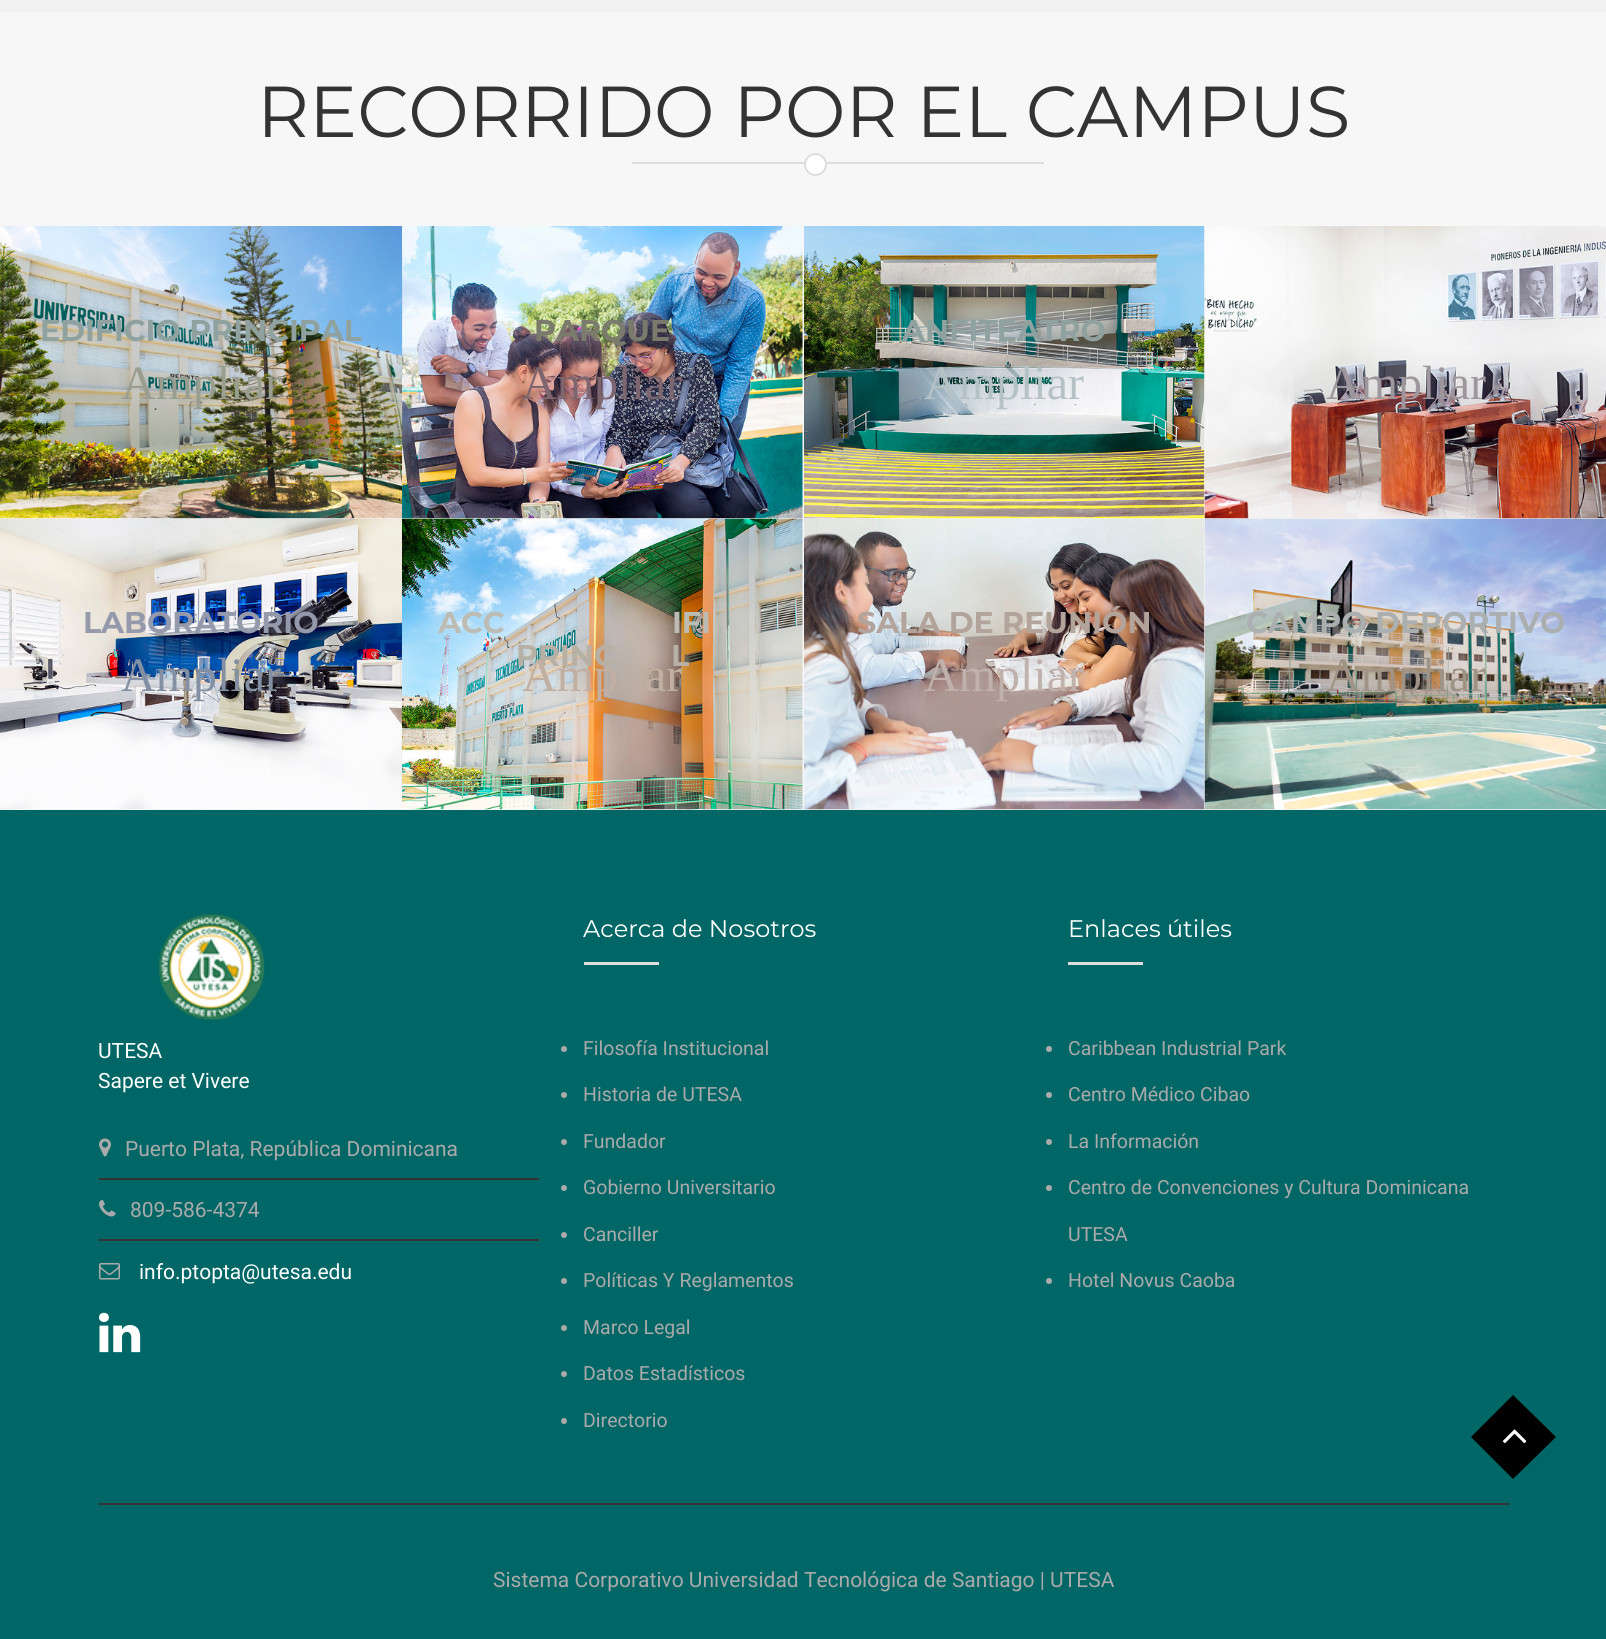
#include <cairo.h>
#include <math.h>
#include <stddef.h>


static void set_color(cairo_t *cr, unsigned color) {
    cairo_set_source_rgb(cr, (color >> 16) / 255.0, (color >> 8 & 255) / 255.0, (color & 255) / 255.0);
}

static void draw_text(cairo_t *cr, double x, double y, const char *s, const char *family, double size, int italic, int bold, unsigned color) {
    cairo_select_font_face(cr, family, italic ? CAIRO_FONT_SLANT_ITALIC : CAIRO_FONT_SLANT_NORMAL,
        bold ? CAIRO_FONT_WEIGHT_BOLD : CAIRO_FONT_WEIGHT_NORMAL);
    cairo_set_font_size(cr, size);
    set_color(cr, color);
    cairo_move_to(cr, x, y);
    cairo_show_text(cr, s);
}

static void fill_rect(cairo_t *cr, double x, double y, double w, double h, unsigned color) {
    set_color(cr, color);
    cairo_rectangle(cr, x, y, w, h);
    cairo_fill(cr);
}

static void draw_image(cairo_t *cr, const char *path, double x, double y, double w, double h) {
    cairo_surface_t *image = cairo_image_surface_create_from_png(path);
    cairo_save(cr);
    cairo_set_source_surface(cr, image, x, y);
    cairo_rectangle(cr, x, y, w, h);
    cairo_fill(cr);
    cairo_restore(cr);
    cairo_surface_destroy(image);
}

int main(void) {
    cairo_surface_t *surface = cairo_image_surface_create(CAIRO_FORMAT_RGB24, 1606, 1639);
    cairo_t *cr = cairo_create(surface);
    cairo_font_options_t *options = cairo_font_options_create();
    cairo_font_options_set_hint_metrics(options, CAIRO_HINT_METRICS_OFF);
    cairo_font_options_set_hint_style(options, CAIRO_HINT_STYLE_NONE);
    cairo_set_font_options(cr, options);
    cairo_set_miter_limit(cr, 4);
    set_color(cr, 0xF1F1F1);
    cairo_paint(cr);
    fill_rect(cr, 0, 12, 1606, 798, 0xF7F7F7);
    draw_text(cr, 257, 137, "RECORRIDO POR EL CAMPUS", "Montserrat", 72, 0, 0, 0x333333);
    fill_rect(cr, 632, 162, 412, 2, 0xDDDDDD);
    set_color(cr, 0xFFFFFF);
    cairo_new_path(cr);
    cairo_arc(cr, 815.5, 164.5, 10.5, 0, 2 * M_PI);
    cairo_fill_preserve(cr);
    set_color(cr, 0xDDDDDD);
    cairo_stroke(cr);
    draw_image(cr, "assets/img1.png", 0, 226, 402, 293);
    draw_text(cr, 40, 341, "EDIFICIO PRINCIPAL", "Montserrat", 30, 0, 1, 0x8FA2A0);
    draw_text(cr, 121, 399, "Ampliar", "Liberation Serif", 48, 0, 0, 0x999E90);
    draw_image(cr, "assets/img2.png", 402, 226, 401, 293);
    draw_text(cr, 534, 341, "PARQUE", "Montserrat", 30, 0, 1, 0x7A7B6C);
    draw_text(cr, 522, 399, "Ampliar", "Liberation Serif", 48, 0, 0, 0x7D6670);
    draw_image(cr, "assets/img3.png", 804, 226, 401, 293);
    draw_text(cr, 902, 341, "ANFITEATRO", "Montserrat", 30, 0, 1, 0x8FA2A0);
    draw_text(cr, 924, 399, "Ampliar", "Liberation Serif", 48, 0, 0, 0xB4C2C6);
    draw_image(cr, "assets/img4.png", 1204, 226, 402, 293);
    draw_text(cr, 1326, 399, "Ampliar", "Liberation Serif", 48, 0, 0, 0x9D969C);
    draw_image(cr, "assets/img5.png", 0, 518, 402, 291);
    draw_text(cr, 83, 633, "LABORATORIO", "Montserrat", 30, 0, 1, 0x949AAC);
    draw_text(cr, 121, 691, "Ampliar", "Liberation Serif", 48, 0, 0, 0x838FA2);
    draw_image(cr, "assets/img6.png", 402, 518, 401, 292);
    draw_text(cr, 438, 633, "ACC", "Montserrat", 30, 0, 1, 0xBCBCB5);
    draw_text(cr, 672, 633, "IFI", "Montserrat", 30, 0, 1, 0xBCBCB5);
    draw_text(cr, 516, 666, "PRINC", "Montserrat", 30, 0, 1, 0xB7B0A5);
    draw_text(cr, 671, 666, "L", "Montserrat", 30, 0, 1, 0xB7B0A5);
    draw_text(cr, 522, 691, "Amp", "Liberation Serif", 48, 0, 0, 0xC1AFA1);
    draw_text(cr, 645, 691, "ar", "Liberation Serif", 48, 0, 0, 0xC1AFA1);
    draw_image(cr, "assets/img7.png", 804, 518, 401, 292);
    draw_text(cr, 857, 633, "SALA DE REUNIÓN", "Montserrat", 30, 0, 1, 0xB2A39B);
    draw_text(cr, 924, 691, "Ampliar", "Liberation Serif", 48, 0, 0, 0xC1B1AD);
    draw_image(cr, "assets/img8.png", 1204, 518, 402, 292);
    draw_text(cr, 1246, 633, "CAMPO DEPORTIVO", "Montserrat", 30, 0, 1, 0xABAFB0);
    draw_text(cr, 1326, 691, "Ampliar", "Liberation Serif", 48, 0, 0, 0x9F9386);
    fill_rect(cr, 0, 810, 1606, 829, 0x006666);
    fill_rect(cr, 99, 1503, 1410, 2, 0x333333);
    draw_image(cr, "assets/img9.png", 158, 914, 107, 106);
    draw_text(cr, 98, 1058, "UTESA", "Roboto", 21, 0, 0, 0xFFFFFF);
    draw_text(cr, 98, 1088, "Sapere et Vivere", "Roboto", 21, 0, 0, 0xFFFFFF);
    fill_rect(cr, 99, 1178, 440, 2, 0x333333);
    draw_image(cr, "assets/img10.png", 99, 1138, 12, 19);
    draw_text(cr, 125, 1156, "Puerto Plata, República Dominicana", "Roboto", 21, 0, 0, 0xAAAAAA);
    fill_rect(cr, 99, 1239, 440, 2, 0x333333);
    draw_image(cr, "assets/img11.png", 99, 1200, 17, 17);
    draw_text(cr, 130, 1217, "809-586-4374", "Roboto", 21, 0, 0, 0xAAAAAA);
    draw_image(cr, "assets/img12.png", 99, 1263, 21, 17);
    draw_text(cr, 139, 1279, "info.ptopta@utesa.edu", "Roboto", 21, 0, 0, 0xFFFFFF);
    draw_image(cr, "assets/img13.png", 99, 1312, 42, 41);
    draw_text(cr, 583, 937, "Acerca de Nosotros", "Montserrat", 24, 0, 0, 0xFFFFFF);
    fill_rect(cr, 584, 962, 75, 3, 0xDDDDDD);
    set_color(cr, 0xAAAAAA);
    cairo_new_path(cr);
    cairo_arc(cr, 564, 1049, 3, 0, 2 * M_PI);
    cairo_fill(cr);
    draw_text(cr, 583, 1055, "Filosofía Institucional", "Roboto", 19.5, 0, 0, 0xAAAAAA);
    cairo_new_path(cr);
    cairo_arc(cr, 564, 1095, 3, 0, 2 * M_PI);
    cairo_fill(cr);
    draw_text(cr, 583, 1101, "Historia de UTESA", "Roboto", 19.5, 0, 0, 0xAAAAAA);
    cairo_new_path(cr);
    cairo_arc(cr, 564, 1142, 3, 0, 2 * M_PI);
    cairo_fill(cr);
    draw_text(cr, 583, 1148, "Fundador", "Roboto", 19.5, 0, 0, 0xAAAAAA);
    cairo_new_path(cr);
    cairo_arc(cr, 564, 1188, 3, 0, 2 * M_PI);
    cairo_fill(cr);
    draw_text(cr, 583, 1194, "Gobierno Universitario", "Roboto", 19.5, 0, 0, 0xAAAAAA);
    cairo_new_path(cr);
    cairo_arc(cr, 564, 1235, 3, 0, 2 * M_PI);
    cairo_fill(cr);
    draw_text(cr, 583, 1241, "Canciller", "Roboto", 19.5, 0, 0, 0xAAAAAA);
    cairo_new_path(cr);
    cairo_arc(cr, 564, 1281, 3, 0, 2 * M_PI);
    cairo_fill(cr);
    draw_text(cr, 583, 1287, "Políticas Y Reglamentos", "Roboto", 19.5, 0, 0, 0xAAAAAA);
    cairo_new_path(cr);
    cairo_arc(cr, 564, 1328, 3, 0, 2 * M_PI);
    cairo_fill(cr);
    draw_text(cr, 583, 1334, "Marco Legal", "Roboto", 19.5, 0, 0, 0xAAAAAA);
    cairo_new_path(cr);
    cairo_arc(cr, 564, 1374, 3, 0, 2 * M_PI);
    cairo_fill(cr);
    draw_text(cr, 583, 1380, "Datos Estadísticos", "Roboto", 19.5, 0, 0, 0xAAAAAA);
    cairo_new_path(cr);
    cairo_arc(cr, 564, 1421, 3, 0, 2 * M_PI);
    cairo_fill(cr);
    draw_text(cr, 583, 1427, "Directorio", "Roboto", 19.5, 0, 0, 0xAAAAAA);
    draw_text(cr, 1068, 937, "Enlaces útiles", "Montserrat", 24, 0, 0, 0xFFFFFF);
    fill_rect(cr, 1068, 962, 75, 3, 0xDDDDDD);
    set_color(cr, 0xAAAAAA);
    cairo_new_path(cr);
    cairo_arc(cr, 1049, 1049, 3, 0, 2 * M_PI);
    cairo_fill(cr);
    draw_text(cr, 1068, 1055, "Caribbean Industrial Park", "Roboto", 19.5, 0, 0, 0xAAAAAA);
    cairo_new_path(cr);
    cairo_arc(cr, 1049, 1095, 3, 0, 2 * M_PI);
    cairo_fill(cr);
    draw_text(cr, 1068, 1101, "Centro Médico Cibao", "Roboto", 19.5, 0, 0, 0xAAAAAA);
    cairo_new_path(cr);
    cairo_arc(cr, 1049, 1142, 3, 0, 2 * M_PI);
    cairo_fill(cr);
    draw_text(cr, 1068, 1148, "La Información", "Roboto", 19.5, 0, 0, 0xAAAAAA);
    cairo_new_path(cr);
    cairo_arc(cr, 1049, 1188, 3, 0, 2 * M_PI);
    cairo_fill(cr);
    draw_text(cr, 1068, 1194, "Centro de Convenciones y Cultura Dominicana", "Roboto", 19.5, 0, 0, 0xAAAAAA);
    draw_text(cr, 1068, 1241, "UTESA", "Roboto", 19.5, 0, 0, 0xAAAAAA);
    cairo_new_path(cr);
    cairo_arc(cr, 1049, 1281, 3, 0, 2 * M_PI);
    cairo_fill(cr);
    draw_text(cr, 1068, 1287, "Hotel Novus Caoba", "Roboto", 19.5, 0, 0, 0xAAAAAA);
    draw_text(cr, 493, 1587, "Sistema Corporativo Universidad Tecnológica de Santiago | UTESA", "Roboto", 21, 0, 0, 0xAAAAAA);
    set_color(cr, 0x000000);
    cairo_new_path(cr);
    cairo_move_to(cr, 1513, 1395);
    cairo_line_to(cr, 1556, 1437);
    cairo_line_to(cr, 1513, 1479);
    cairo_line_to(cr, 1471, 1437);
    cairo_close_path(cr);
    cairo_fill(cr);
    draw_image(cr, "assets/img14.png", 1502, 1429, 25, 15);
    cairo_surface_write_to_png(surface, "output.png");
    cairo_font_options_destroy(options);
    cairo_destroy(cr);
    cairo_surface_destroy(surface);
    return 0;
}
